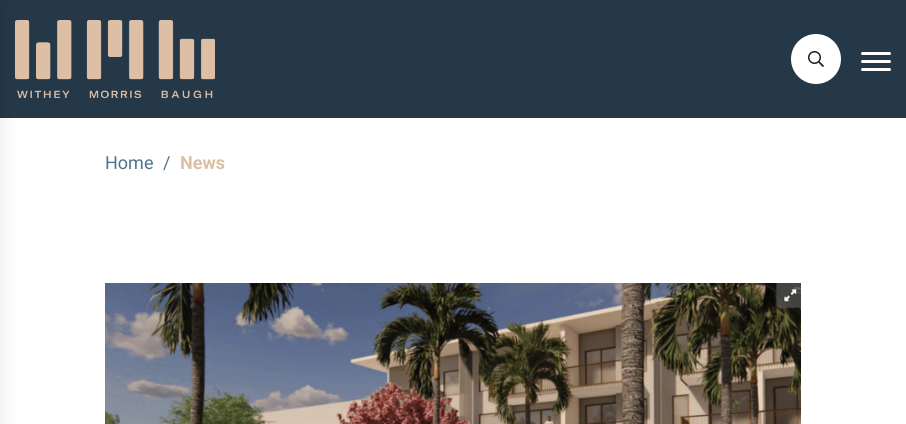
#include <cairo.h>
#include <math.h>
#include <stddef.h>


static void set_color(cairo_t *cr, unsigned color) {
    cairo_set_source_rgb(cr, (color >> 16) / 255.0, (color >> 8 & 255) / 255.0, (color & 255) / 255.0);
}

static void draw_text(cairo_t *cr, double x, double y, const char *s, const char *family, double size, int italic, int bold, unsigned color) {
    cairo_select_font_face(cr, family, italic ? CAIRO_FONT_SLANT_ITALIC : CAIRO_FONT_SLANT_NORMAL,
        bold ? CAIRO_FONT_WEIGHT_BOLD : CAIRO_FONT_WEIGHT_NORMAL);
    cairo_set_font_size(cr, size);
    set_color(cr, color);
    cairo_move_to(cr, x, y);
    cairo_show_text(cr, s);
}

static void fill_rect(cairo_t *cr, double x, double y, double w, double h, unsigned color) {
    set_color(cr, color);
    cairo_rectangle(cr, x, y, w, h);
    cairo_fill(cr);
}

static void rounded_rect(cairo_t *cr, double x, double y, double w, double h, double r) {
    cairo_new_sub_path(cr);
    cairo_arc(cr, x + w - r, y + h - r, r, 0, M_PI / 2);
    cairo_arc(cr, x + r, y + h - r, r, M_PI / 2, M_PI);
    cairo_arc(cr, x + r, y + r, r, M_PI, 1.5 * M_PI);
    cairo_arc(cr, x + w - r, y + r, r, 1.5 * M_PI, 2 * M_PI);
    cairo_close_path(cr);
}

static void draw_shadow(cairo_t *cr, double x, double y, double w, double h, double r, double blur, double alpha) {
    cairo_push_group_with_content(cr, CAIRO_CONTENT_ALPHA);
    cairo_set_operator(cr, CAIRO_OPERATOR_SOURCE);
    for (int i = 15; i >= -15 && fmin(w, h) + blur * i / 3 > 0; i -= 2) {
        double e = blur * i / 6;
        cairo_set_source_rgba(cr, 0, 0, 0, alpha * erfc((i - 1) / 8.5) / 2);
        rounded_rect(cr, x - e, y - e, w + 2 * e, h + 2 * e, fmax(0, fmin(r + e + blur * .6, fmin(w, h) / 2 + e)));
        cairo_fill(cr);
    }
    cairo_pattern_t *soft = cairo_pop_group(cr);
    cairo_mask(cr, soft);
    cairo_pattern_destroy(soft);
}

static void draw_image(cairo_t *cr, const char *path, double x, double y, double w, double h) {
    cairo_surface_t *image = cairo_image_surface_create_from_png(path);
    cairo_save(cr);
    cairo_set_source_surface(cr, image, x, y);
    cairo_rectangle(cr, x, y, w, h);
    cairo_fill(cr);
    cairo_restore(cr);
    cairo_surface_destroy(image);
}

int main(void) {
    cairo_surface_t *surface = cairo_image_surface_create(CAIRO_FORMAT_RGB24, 906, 424);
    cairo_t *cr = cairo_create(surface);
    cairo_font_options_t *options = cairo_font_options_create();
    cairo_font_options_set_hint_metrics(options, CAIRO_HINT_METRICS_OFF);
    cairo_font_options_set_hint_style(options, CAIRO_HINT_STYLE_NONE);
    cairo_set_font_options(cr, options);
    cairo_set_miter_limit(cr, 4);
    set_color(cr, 0xFFFFFF);
    cairo_paint(cr);
    fill_rect(cr, 0, 0, 906, 118, 0x243848);
    draw_image(cr, "assets/img1.png", 15, 20, 200, 78);
    set_color(cr, 0x000000);
    draw_shadow(cr, -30, 5, 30, 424, 0, 10, 0.1);
    set_color(cr, 0xFFFFFF);
    cairo_arc(cr, 816, 59, 25, 0, 2 * M_PI);
    cairo_fill(cr);
    draw_image(cr, "assets/img2.png", 808, 51, 16, 16);
    rounded_rect(cr, 861, 52, 30, 3, 1.5);
    cairo_fill(cr);
    rounded_rect(cr, 861, 60, 30, 3, 1.5);
    cairo_fill(cr);
    rounded_rect(cr, 861, 68, 30, 3, 1.5);
    cairo_fill(cr);
    draw_text(cr, 105, 169, "Home", "Roboto", 18, 0, 0, 0x4E738A);
    draw_text(cr, 163, 169, "/", "Roboto", 18, 0, 0, 0x4E738A);
    draw_text(cr, 180, 169, "News", "Roboto", 18, 0, 1, 0xDBBFA5);
    draw_image(cr, "assets/img3.png", 105, 283, 696, 141);
    cairo_surface_write_to_png(surface, "output.png");
    cairo_font_options_destroy(options);
    cairo_destroy(cr);
    cairo_surface_destroy(surface);
    return 0;
}
